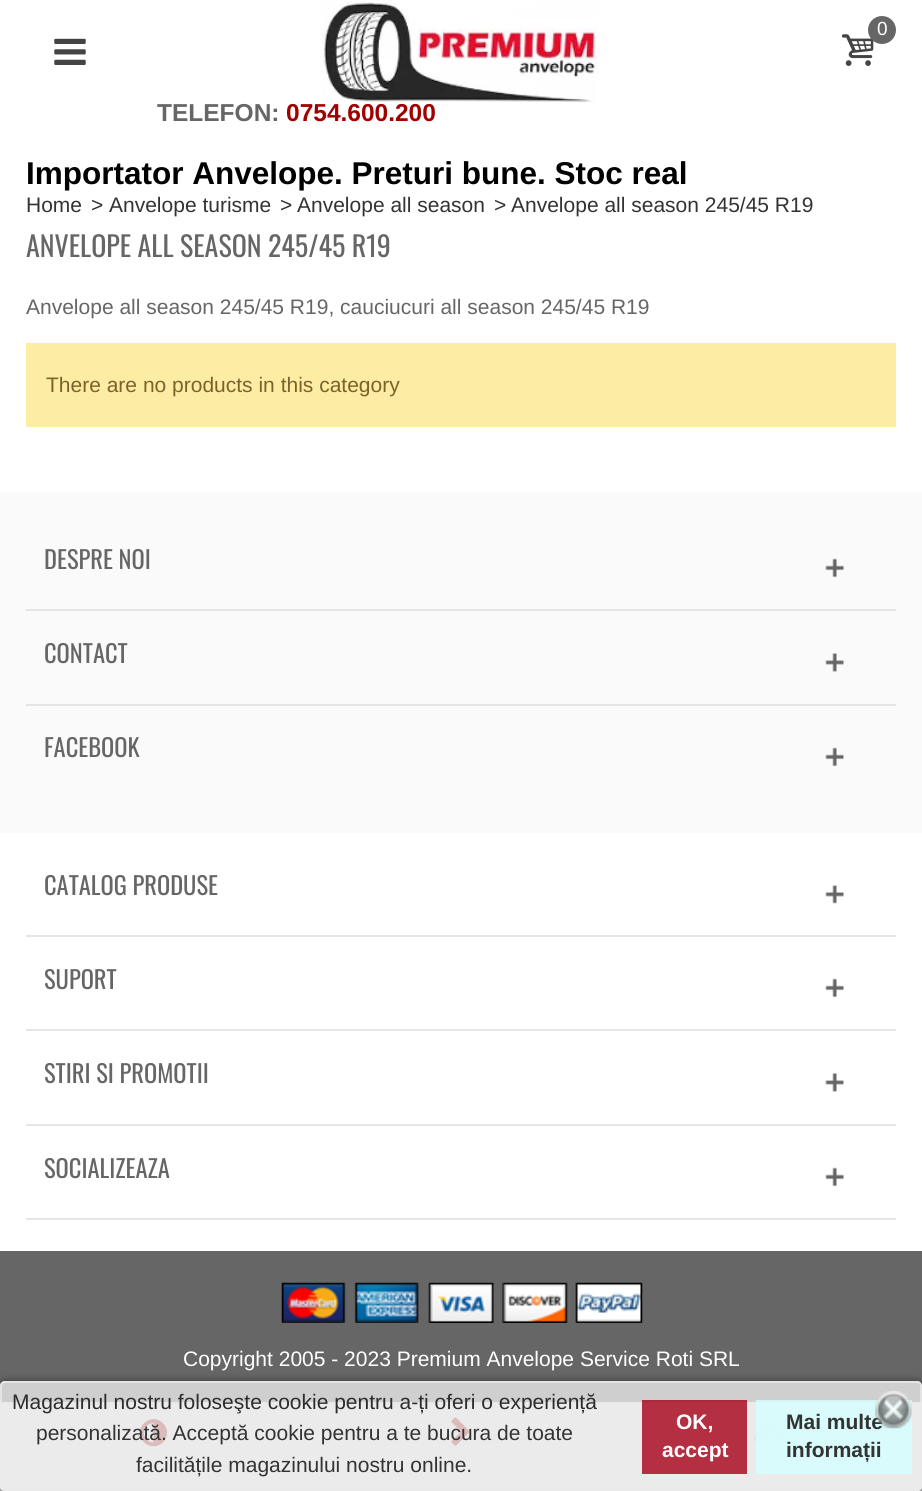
#include <cairo.h>
#include <math.h>
#include <stddef.h>


static void set_color(cairo_t *cr, unsigned color) {
    cairo_set_source_rgb(cr, (color >> 16) / 255.0, (color >> 8 & 255) / 255.0, (color & 255) / 255.0);
}

static void draw_text(cairo_t *cr, double x, double y, const char *s, const char *family, double size, int italic, int bold, unsigned color) {
    cairo_select_font_face(cr, family, italic ? CAIRO_FONT_SLANT_ITALIC : CAIRO_FONT_SLANT_NORMAL,
        bold ? CAIRO_FONT_WEIGHT_BOLD : CAIRO_FONT_WEIGHT_NORMAL);
    cairo_set_font_size(cr, size);
    set_color(cr, color);
    cairo_move_to(cr, x, y);
    cairo_show_text(cr, s);
}

static void fill_rect(cairo_t *cr, double x, double y, double w, double h, unsigned color) {
    set_color(cr, color);
    cairo_rectangle(cr, x, y, w, h);
    cairo_fill(cr);
}

static void rounded_rect(cairo_t *cr, double x, double y, double w, double h, double r) {
    cairo_new_sub_path(cr);
    cairo_arc(cr, x + w - r, y + h - r, r, 0, M_PI / 2);
    cairo_arc(cr, x + r, y + h - r, r, M_PI / 2, M_PI);
    cairo_arc(cr, x + r, y + r, r, M_PI, 1.5 * M_PI);
    cairo_arc(cr, x + w - r, y + r, r, 1.5 * M_PI, 2 * M_PI);
    cairo_close_path(cr);
}

static void draw_shadow(cairo_t *cr, double x, double y, double w, double h, double r, double blur, double alpha) {
    cairo_push_group_with_content(cr, CAIRO_CONTENT_ALPHA);
    cairo_set_operator(cr, CAIRO_OPERATOR_SOURCE);
    for (int i = 15; i >= -15 && fmin(w, h) + blur * i / 3 > 0; i -= 2) {
        double e = blur * i / 6;
        cairo_set_source_rgba(cr, 0, 0, 0, alpha * erfc((i - 1) / 8.5) / 2);
        rounded_rect(cr, x - e, y - e, w + 2 * e, h + 2 * e, fmax(0, fmin(r + e + blur * .6, fmin(w, h) / 2 + e)));
        cairo_fill(cr);
    }
    cairo_pattern_t *soft = cairo_pop_group(cr);
    cairo_mask(cr, soft);
    cairo_pattern_destroy(soft);
}

static void draw_image(cairo_t *cr, const char *path, double x, double y, double w, double h) {
    cairo_surface_t *image = cairo_image_surface_create_from_png(path);
    cairo_save(cr);
    cairo_set_source_surface(cr, image, x, y);
    cairo_rectangle(cr, x, y, w, h);
    cairo_fill(cr);
    cairo_restore(cr);
    cairo_surface_destroy(image);
}

int main(void) {
    cairo_surface_t *surface = cairo_image_surface_create(CAIRO_FORMAT_RGB24, 922, 1491);
    cairo_t *cr = cairo_create(surface);
    cairo_font_options_t *options = cairo_font_options_create();
    cairo_font_options_set_hint_metrics(options, CAIRO_HINT_METRICS_OFF);
    cairo_font_options_set_hint_style(options, CAIRO_HINT_STYLE_NONE);
    cairo_set_font_options(cr, options);
    cairo_set_miter_limit(cr, 4);
    set_color(cr, 0xFFFFFF);
    cairo_paint(cr);
    draw_image(cr, "assets/img1.png", 322, 0, 276, 103);
    draw_image(cr, "assets/img2.png", 841, 34, 33, 32);
    set_color(cr, 0x666666);
    cairo_arc(cr, 882, 30, 14, 0, 2 * M_PI);
    cairo_fill(cr);
    draw_text(cr, 877, 35, "0", "Liberation Sans", 19, 0, 0, 0xFFFFFF);
    draw_image(cr, "assets/img3.png", 54, 38, 32, 27);
    draw_text(cr, 157, 121, "TELEFON:", "Liberation Sans", 24.5, 0, 1, 0x666666);
    draw_text(cr, 286, 121, "0754.600.200", "Liberation Sans", 24.5, 0, 1, 0xA00000);
    draw_text(cr, 26, 184, "Importator Anvelope. Preturi bune. Stoc real", "Liberation Sans", 31.5, 0, 1, 0x000000);
    fill_rect(cr, 0, 1251, 922, 151, 0x666666);
    fill_rect(cr, 0, 1404, 922, 87, 0xF1F1F1);
    fill_rect(cr, 0, 1402, 922, 2, 0xE5E5E5);
    draw_image(cr, "assets/img11.png", 140, 1419, 27, 28);
    draw_image(cr, "assets/img12.png", 451, 1417, 19, 29);
    set_color(cr, 0xCCCCCC);
    cairo_new_path(cr);
    cairo_move_to(cr, 752.5, 1438.5);
    cairo_line_to(cr, 768, 1422.5);
    cairo_line_to(cr, 784, 1438.5);
    cairo_line_to(cr, 779.5, 1443);
    cairo_line_to(cr, 768, 1432);
    cairo_line_to(cr, 757, 1443);
    cairo_close_path(cr);
    cairo_fill(cr);
    cairo_save(cr);
    cairo_set_fill_rule(cr, CAIRO_FILL_RULE_EVEN_ODD);
    cairo_new_path(cr);
    cairo_move_to(cr, 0, 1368);
    cairo_line_to(cr, 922, 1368);
    cairo_line_to(cr, 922, 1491);
    cairo_line_to(cr, 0, 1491);
    cairo_close_path(cr);
    cairo_move_to(cr, 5, 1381);
    cairo_line_to(cr, 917, 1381);
    cairo_curve_to(cr, 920, 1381, 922, 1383, 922, 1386);
    cairo_line_to(cr, 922, 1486);
    cairo_curve_to(cr, 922, 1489, 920, 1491, 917, 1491);
    cairo_line_to(cr, 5, 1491);
    cairo_curve_to(cr, 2, 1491, 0, 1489, 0, 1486);
    cairo_line_to(cr, 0, 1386);
    cairo_curve_to(cr, 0, 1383, 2, 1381, 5, 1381);
    cairo_close_path(cr);
    cairo_clip(cr);
    set_color(cr, 0x000000);
    draw_shadow(cr, 0, 1383, 922, 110, 5, 4.5, 0.8);
    cairo_restore(cr);
    cairo_set_source_rgba(cr, 0.914, 0.914, 0.914, 0.8);
    rounded_rect(cr, 0, 1381, 922, 110, 5);
    cairo_fill(cr);
    rounded_rect(cr, 1, 1382, 920, 108, 4);
    cairo_stroke(cr);
    draw_text(cr, 12, 1409, "Magazinul nostru foloseşte cookie pentru a-ți oferi o experiență", "Liberation Sans", 21, 0, 0, 0x2C2C2C);
    draw_text(cr, 36, 1440, "personalizată. Acceptă cookie pentru a te bucura de toate", "Liberation Sans", 21, 0, 0, 0x333333);
    draw_text(cr, 136, 1472, "facilitățile magazinului nostru online.", "Liberation Sans", 21, 0, 0, 0x333333);
    cairo_set_source_rgba(cr, 0.651, 0, 0.094, 0.8);
    cairo_rectangle(cr, 642, 1400, 105, 74);
    cairo_fill(cr);
    draw_text(cr, 676, 1429, "OK,", "Liberation Sans", 21, 0, 1, 0xFFFFFF);
    draw_text(cr, 662, 1457, "accept", "Liberation Sans", 21, 0, 1, 0xFFFFFF);
    cairo_set_source_rgba(cr, 0.831, 1, 1, 0.8);
    cairo_rectangle(cr, 756, 1400, 156, 74);
    cairo_fill(cr);
    draw_text(cr, 786, 1429, "Mai multe", "Liberation Sans", 21, 0, 1, 0x333333);
    draw_text(cr, 786, 1457, "informații", "Liberation Sans", 21, 0, 1, 0x333333);
    draw_image(cr, "assets/img4.png", 875, 1391, 37, 38);
    draw_text(cr, 26, 212, "Home", "Liberation Sans", 21, 0, 0, 0x333333);
    draw_text(cr, 91, 212, ">", "Liberation Sans", 21, 0, 0, 0x333333);
    draw_text(cr, 109, 212, "Anvelope turisme", "Liberation Sans", 21, 0, 0, 0x333333);
    draw_text(cr, 280, 212, ">", "Liberation Sans", 21, 0, 0, 0x333333);
    draw_text(cr, 297, 212, "Anvelope all season", "Liberation Sans", 21, 0, 0, 0x333333);
    draw_text(cr, 494, 212, ">", "Liberation Sans", 21, 0, 0, 0x333333);
    draw_text(cr, 511, 212, "Anvelope all season 245/45 R19", "Liberation Sans", 21, 0, 0, 0x333333);
    draw_text(cr, 26, 257, "ANVELOPE ALL SEASON 245/45 R19", "Oswald", 28, 0, 0, 0x666666);
    draw_text(cr, 26, 314, "Anvelope all season 245/45 R19, cauciucuri all season 245/45 R19", "Liberation Sans", 21, 0, 0, 0x666666);
    fill_rect(cr, 26, 343, 870, 84, 0xFDEDA4);
    draw_text(cr, 46, 392, "There are no products in this category", "Liberation Sans", 21, 0, 0, 0x7C622A);
    fill_rect(cr, 0, 492, 922, 341, 0xFAFAFA);
    fill_rect(cr, 26, 609, 870, 2, 0xE5E5E5);
    draw_text(cr, 44, 569, "DESPRE NOI", "Oswald", 24.5, 0, 0, 0x666666);
    draw_image(cr, "assets/img5.png", 825, 558, 19, 20);
    fill_rect(cr, 26, 704, 870, 2, 0xE5E5E5);
    draw_text(cr, 44, 663, "CONTACT", "Oswald", 24.5, 0, 0, 0x666666);
    draw_image(cr, "assets/img6.png", 825, 653, 19, 19);
    draw_text(cr, 44, 757, "FACEBOOK", "Oswald", 24.5, 0, 0, 0x666666);
    draw_image(cr, "assets/img5.png", 825, 747, 19, 20);
    fill_rect(cr, 26, 935, 870, 2, 0xE5E5E5);
    draw_text(cr, 44, 895, "CATALOG PRODUSE", "Oswald", 24.5, 0, 0, 0x666666);
    draw_image(cr, "assets/img7.png", 825, 885, 19, 19);
    fill_rect(cr, 26, 1029, 870, 2, 0xE5E5E5);
    draw_text(cr, 44, 989, "SUPORT", "Oswald", 24.5, 0, 0, 0x666666);
    draw_image(cr, "assets/img8.png", 825, 978, 19, 20);
    fill_rect(cr, 26, 1124, 870, 2, 0xE5E5E5);
    draw_text(cr, 44, 1083, "STIRI SI PROMOTII", "Oswald", 24.5, 0, 0, 0x666666);
    draw_image(cr, "assets/img9.png", 825, 1073, 19, 19);
    fill_rect(cr, 26, 1218, 870, 2, 0xE5E5E5);
    draw_text(cr, 44, 1178, "SOCIALIZEAZA", "Oswald", 24.5, 0, 0, 0x666666);
    draw_image(cr, "assets/img8.png", 825, 1167, 19, 20);
    draw_image(cr, "assets/img10.png", 281, 1282, 362, 41);
    draw_text(cr, 183, 1366, "Copyright 2005 - 2023 Premium Anvelope Service Roti SRL", "Liberation Sans", 21, 0, 0, 0xFFFFFF);
    cairo_surface_write_to_png(surface, "output.png");
    cairo_font_options_destroy(options);
    cairo_destroy(cr);
    cairo_surface_destroy(surface);
    return 0;
}
